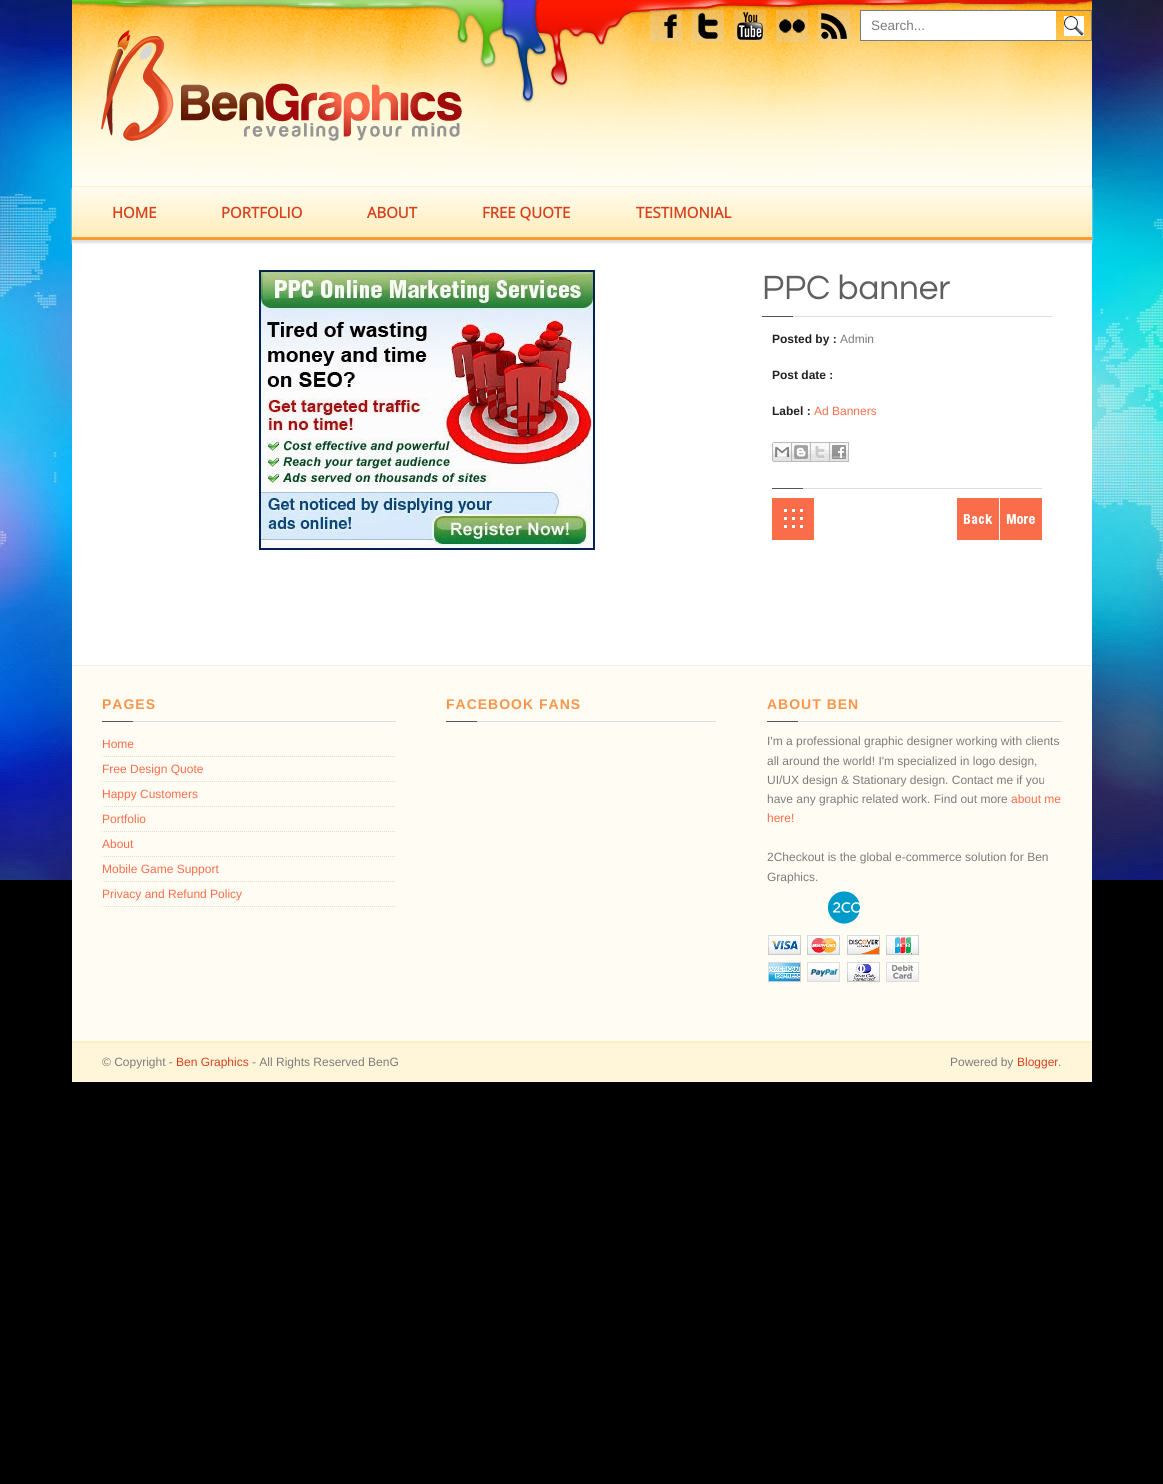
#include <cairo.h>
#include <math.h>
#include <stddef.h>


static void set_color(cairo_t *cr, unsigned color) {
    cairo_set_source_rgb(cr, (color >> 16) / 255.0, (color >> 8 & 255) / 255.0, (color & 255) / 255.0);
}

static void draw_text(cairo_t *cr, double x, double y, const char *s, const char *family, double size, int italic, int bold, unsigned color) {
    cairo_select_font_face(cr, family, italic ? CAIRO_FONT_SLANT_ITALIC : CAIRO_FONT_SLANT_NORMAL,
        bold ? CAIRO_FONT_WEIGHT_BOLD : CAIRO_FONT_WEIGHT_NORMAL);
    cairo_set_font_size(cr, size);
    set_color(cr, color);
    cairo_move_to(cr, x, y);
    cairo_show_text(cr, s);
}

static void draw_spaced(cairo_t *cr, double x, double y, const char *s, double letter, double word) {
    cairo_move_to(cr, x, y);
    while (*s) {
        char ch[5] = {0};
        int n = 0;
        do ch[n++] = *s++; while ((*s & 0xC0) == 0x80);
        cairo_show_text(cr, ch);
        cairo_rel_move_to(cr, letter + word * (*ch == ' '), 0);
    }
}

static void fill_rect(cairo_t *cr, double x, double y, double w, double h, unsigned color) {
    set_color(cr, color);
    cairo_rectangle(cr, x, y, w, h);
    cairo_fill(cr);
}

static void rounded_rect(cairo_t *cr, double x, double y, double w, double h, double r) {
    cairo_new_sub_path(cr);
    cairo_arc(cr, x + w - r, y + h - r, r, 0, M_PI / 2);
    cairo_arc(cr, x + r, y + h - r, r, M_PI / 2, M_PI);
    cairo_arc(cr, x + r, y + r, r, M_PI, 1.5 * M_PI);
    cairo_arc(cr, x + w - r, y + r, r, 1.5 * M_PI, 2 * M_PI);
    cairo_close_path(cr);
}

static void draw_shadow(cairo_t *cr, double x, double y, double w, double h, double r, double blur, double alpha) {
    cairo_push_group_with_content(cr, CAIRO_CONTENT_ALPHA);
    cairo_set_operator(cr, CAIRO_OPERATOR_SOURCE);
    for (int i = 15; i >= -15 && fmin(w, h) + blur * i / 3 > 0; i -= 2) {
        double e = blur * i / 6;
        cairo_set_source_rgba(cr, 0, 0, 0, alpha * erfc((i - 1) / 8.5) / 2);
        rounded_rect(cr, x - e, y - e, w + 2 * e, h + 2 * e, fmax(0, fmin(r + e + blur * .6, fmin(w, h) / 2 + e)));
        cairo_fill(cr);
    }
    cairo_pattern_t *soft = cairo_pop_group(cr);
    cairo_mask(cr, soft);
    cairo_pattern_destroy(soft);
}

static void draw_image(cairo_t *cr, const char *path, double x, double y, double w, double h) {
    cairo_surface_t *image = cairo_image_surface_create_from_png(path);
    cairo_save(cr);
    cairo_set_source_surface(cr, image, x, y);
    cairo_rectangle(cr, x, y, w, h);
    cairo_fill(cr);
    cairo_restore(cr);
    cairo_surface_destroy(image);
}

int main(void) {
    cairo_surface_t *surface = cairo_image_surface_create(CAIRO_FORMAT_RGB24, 1163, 1484);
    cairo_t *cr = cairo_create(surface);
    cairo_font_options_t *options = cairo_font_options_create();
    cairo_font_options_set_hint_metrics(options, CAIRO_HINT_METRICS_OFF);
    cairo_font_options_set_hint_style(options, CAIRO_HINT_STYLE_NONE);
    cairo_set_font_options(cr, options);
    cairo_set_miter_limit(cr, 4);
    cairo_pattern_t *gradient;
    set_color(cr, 0x000000);
    cairo_paint(cr);
    draw_image(cr, "assets/img1.png", 0, 0, 1163, 880);
    fill_rect(cr, 72, 240, 1020, 425, 0xFFFFFF);
    set_color(cr, 0xDFDFDF);
    draw_shadow(cr, 72, 189, 1020, 54, 0, 1, 1);
    draw_image(cr, "assets/img2.png", 72, 0, 1020, 186);
    draw_image(cr, "assets/img3.png", 650, 10, 32, 32);
    draw_image(cr, "assets/img4.png", 692, 10, 32, 32);
    draw_image(cr, "assets/img5.png", 734, 10, 32, 32);
    draw_image(cr, "assets/img6.png", 776, 10, 32, 32);
    draw_image(cr, "assets/img7.png", 818, 10, 32, 32);
    draw_image(cr, "assets/img8.png", 1064, 16, 20, 20);
    cairo_rectangle(cr, 860.5, 10.5, 231, 30);
    set_color(cr, 0x7C7C7C);
    cairo_set_line_width(cr, 1);
    cairo_stroke(cr);
    fill_rect(cr, 861, 11, 195, 29, 0xFFFFFF);
    draw_text(cr, 871, 30, "Search...", "Liberation Sans", 13.5, 0, 0, 0x7C7C7C);
    gradient = cairo_pattern_create_linear(582, 187, 582, 237);
    cairo_pattern_add_color_stop_rgba(gradient, 0, 1, 0.988, 0.941, 1);
    cairo_pattern_add_color_stop_rgba(gradient, 1, 1, 0.925, 0.725, 1);
    cairo_set_source(cr, gradient);
    cairo_pattern_destroy(gradient);
    cairo_rectangle(cr, 72, 187, 1020, 50);
    cairo_fill(cr);
    fill_rect(cr, 72, 186, 1020, 1, 0xFFF0C0);
    fill_rect(cr, 72, 237, 1020, 3, 0xFF9B2F);
    draw_text(cr, 112, 218, "HOME", "Open Sans", 15, 0, 1, 0xD8411E);
    draw_text(cr, 221, 218, "PORTFOLIO", "Open Sans", 15, 0, 1, 0xD8411E);
    draw_text(cr, 367, 218, "ABOUT", "Open Sans", 15, 0, 1, 0xD8411E);
    draw_text(cr, 482, 218, "FREE QUOTE", "Open Sans", 15, 0, 1, 0xD8411E);
    draw_text(cr, 636, 218, "TESTIMONIAL", "Open Sans", 15, 0, 1, 0xD8411E);
    draw_image(cr, "assets/img9.png", 259, 270, 336, 280);
    draw_text(cr, 762, 299, "PPC banner", "Questrial", 35, 0, 0, 0x5F5F5F);
    draw_image(cr, "assets/img10.png", 762, 316, 290, 1);
    draw_text(cr, 772, 343, "Posted by :", "Liberation Sans", 12, 0, 1, 0x222222);
    draw_text(cr, 840, 343, "Admin", "Liberation Sans", 12, 0, 0, 0x7C7C7C);
    draw_text(cr, 772, 379, "Post date :", "Liberation Sans", 12, 0, 1, 0x222222);
    draw_text(cr, 772, 415, "Label :", "Liberation Sans", 12, 0, 1, 0x222222);
    draw_text(cr, 814, 415, "Ad Banners", "Liberation Sans", 12, 0, 0, 0xF96D4B);
    draw_image(cr, "assets/img11.png", 772, 442, 20, 20);
    draw_image(cr, "assets/img12.png", 792, 442, 19, 20);
    draw_image(cr, "assets/img13.png", 811, 442, 19, 20);
    draw_image(cr, "assets/img14.png", 830, 442, 19, 20);
    draw_image(cr, "assets/img15.png", 772, 488, 270, 1);
    draw_image(cr, "assets/img16.png", 772, 498, 42, 42);
    draw_image(cr, "assets/img17.png", 957, 498, 42, 42);
    draw_image(cr, "assets/img18.png", 1000, 498, 42, 42);
    fill_rect(cr, 72, 666, 1020, 375, 0xFFFCF3);
    fill_rect(cr, 72, 665, 1020, 1, 0xEEEEEE);
    draw_image(cr, "assets/img19.png", 102, 721, 294, 1);
    cairo_select_font_face(cr, "Liberation Sans", CAIRO_FONT_SLANT_NORMAL, CAIRO_FONT_WEIGHT_BOLD);
    cairo_set_font_size(cr, 14);
    set_color(cr, 0xF9954B);
    draw_spaced(cr, 102, 709, "PAGES", 1, 0);
    cairo_new_path(cr);
    cairo_move_to(cr, 102, 756.5);
    cairo_line_to(cr, 396, 756.5);
    set_color(cr, 0xDDDDDD);
    cairo_set_dash(cr, (double[]){1, 1}, 2, 0);
    cairo_stroke(cr);
    draw_text(cr, 102, 748, "Home", "Liberation Sans", 12, 0, 0, 0xF96D4B);
    cairo_new_path(cr);
    cairo_move_to(cr, 102, 781.5);
    cairo_line_to(cr, 396, 781.5);
    set_color(cr, 0xDDDDDD);
    cairo_stroke(cr);
    draw_text(cr, 102, 773, "Free Design Quote", "Liberation Sans", 12, 0, 0, 0xF96D4B);
    cairo_new_path(cr);
    cairo_move_to(cr, 102, 806.5);
    cairo_line_to(cr, 396, 806.5);
    set_color(cr, 0xDDDDDD);
    cairo_stroke(cr);
    draw_text(cr, 102, 798, "Happy Customers", "Liberation Sans", 12, 0, 0, 0xF96D4B);
    cairo_new_path(cr);
    cairo_move_to(cr, 102, 831.5);
    cairo_line_to(cr, 396, 831.5);
    set_color(cr, 0xDDDDDD);
    cairo_stroke(cr);
    draw_text(cr, 102, 823, "Portfolio", "Liberation Sans", 12, 0, 0, 0xF96D4B);
    cairo_new_path(cr);
    cairo_move_to(cr, 102, 856.5);
    cairo_line_to(cr, 396, 856.5);
    set_color(cr, 0xDDDDDD);
    cairo_stroke(cr);
    draw_text(cr, 102, 848, "About", "Liberation Sans", 12, 0, 0, 0xF96D4B);
    cairo_new_path(cr);
    cairo_move_to(cr, 102, 881.5);
    cairo_line_to(cr, 396, 881.5);
    set_color(cr, 0xDDDDDD);
    cairo_stroke(cr);
    draw_text(cr, 102, 873, "Mobile Game Support", "Liberation Sans", 12, 0, 0, 0xF96D4B);
    cairo_new_path(cr);
    cairo_move_to(cr, 102, 906.5);
    cairo_line_to(cr, 396, 906.5);
    set_color(cr, 0xDDDDDD);
    cairo_stroke(cr);
    draw_text(cr, 102, 898, "Privacy and Refund Policy", "Liberation Sans", 12, 0, 0, 0xF96D4B);
    draw_image(cr, "assets/img15.png", 446, 721, 270, 1);
    cairo_select_font_face(cr, "Liberation Sans", CAIRO_FONT_SLANT_NORMAL, CAIRO_FONT_WEIGHT_BOLD);
    cairo_set_font_size(cr, 14);
    set_color(cr, 0xF9954B);
    draw_spaced(cr, 446, 709, "FACEBOOK FANS", 1, 0);
    draw_image(cr, "assets/img20.png", 767, 721, 295, 1);
    draw_spaced(cr, 767, 709, "ABOUT BEN", 1, 0);
    draw_text(cr, 767, 745, "I'm a professional graphic designer working with clients", "Liberation Sans", 12, 0, 0, 0x7C7C7C);
    draw_text(cr, 767, 765, "all around the world! I'm specialized in logo design,", "Liberation Sans", 12, 0, 0, 0x7C7C7C);
    draw_text(cr, 767, 784, "UI/UX design & Stationary design. Contact me if you", "Liberation Sans", 12, 0, 0, 0x7C7C7C);
    draw_text(cr, 767, 803, "have any graphic related work. Find out more", "Liberation Sans", 12, 0, 0, 0x7C7C7C);
    draw_text(cr, 1011, 803, "about me", "Liberation Sans", 12, 0, 0, 0xF96D4B);
    draw_text(cr, 767, 822, "here!", "Liberation Sans", 12, 0, 0, 0xF96D4B);
    draw_text(cr, 767, 861, "2Checkout is the global e-commerce solution for Ben", "Liberation Sans", 12, 0, 0, 0x7C7C7C);
    draw_text(cr, 767, 881, "Graphics.", "Liberation Sans", 12, 0, 0, 0x7C7C7C);
    draw_image(cr, "assets/img21.png", 768, 890, 151, 92);
    fill_rect(cr, 72, 1043, 1020, 39, 0xFFF5D9);
    fill_rect(cr, 72, 1041, 1020, 2, 0xFFF0C0);
    draw_text(cr, 102, 1066, "© Copyright -", "Liberation Sans", 12, 0, 0, 0x7C7C7C);
    draw_text(cr, 176, 1066, "Ben Graphics", "Liberation Sans", 12, 0, 0, 0xD8411E);
    draw_text(cr, 252, 1066, "- All Rights Reserved BenG", "Liberation Sans", 12, 0, 0, 0x7C7C7C);
    draw_text(cr, 950, 1066, "Powered by", "Liberation Sans", 12, 0, 0, 0x7C7C7C);
    draw_text(cr, 1017, 1066, "Blogger", "Liberation Sans", 12, 0, 0, 0xD8411E);
    draw_text(cr, 1058, 1066, ".", "Liberation Sans", 12, 0, 0, 0x7C7C7C);
    cairo_surface_write_to_png(surface, "output.png");
    cairo_font_options_destroy(options);
    cairo_destroy(cr);
    cairo_surface_destroy(surface);
    return 0;
}
